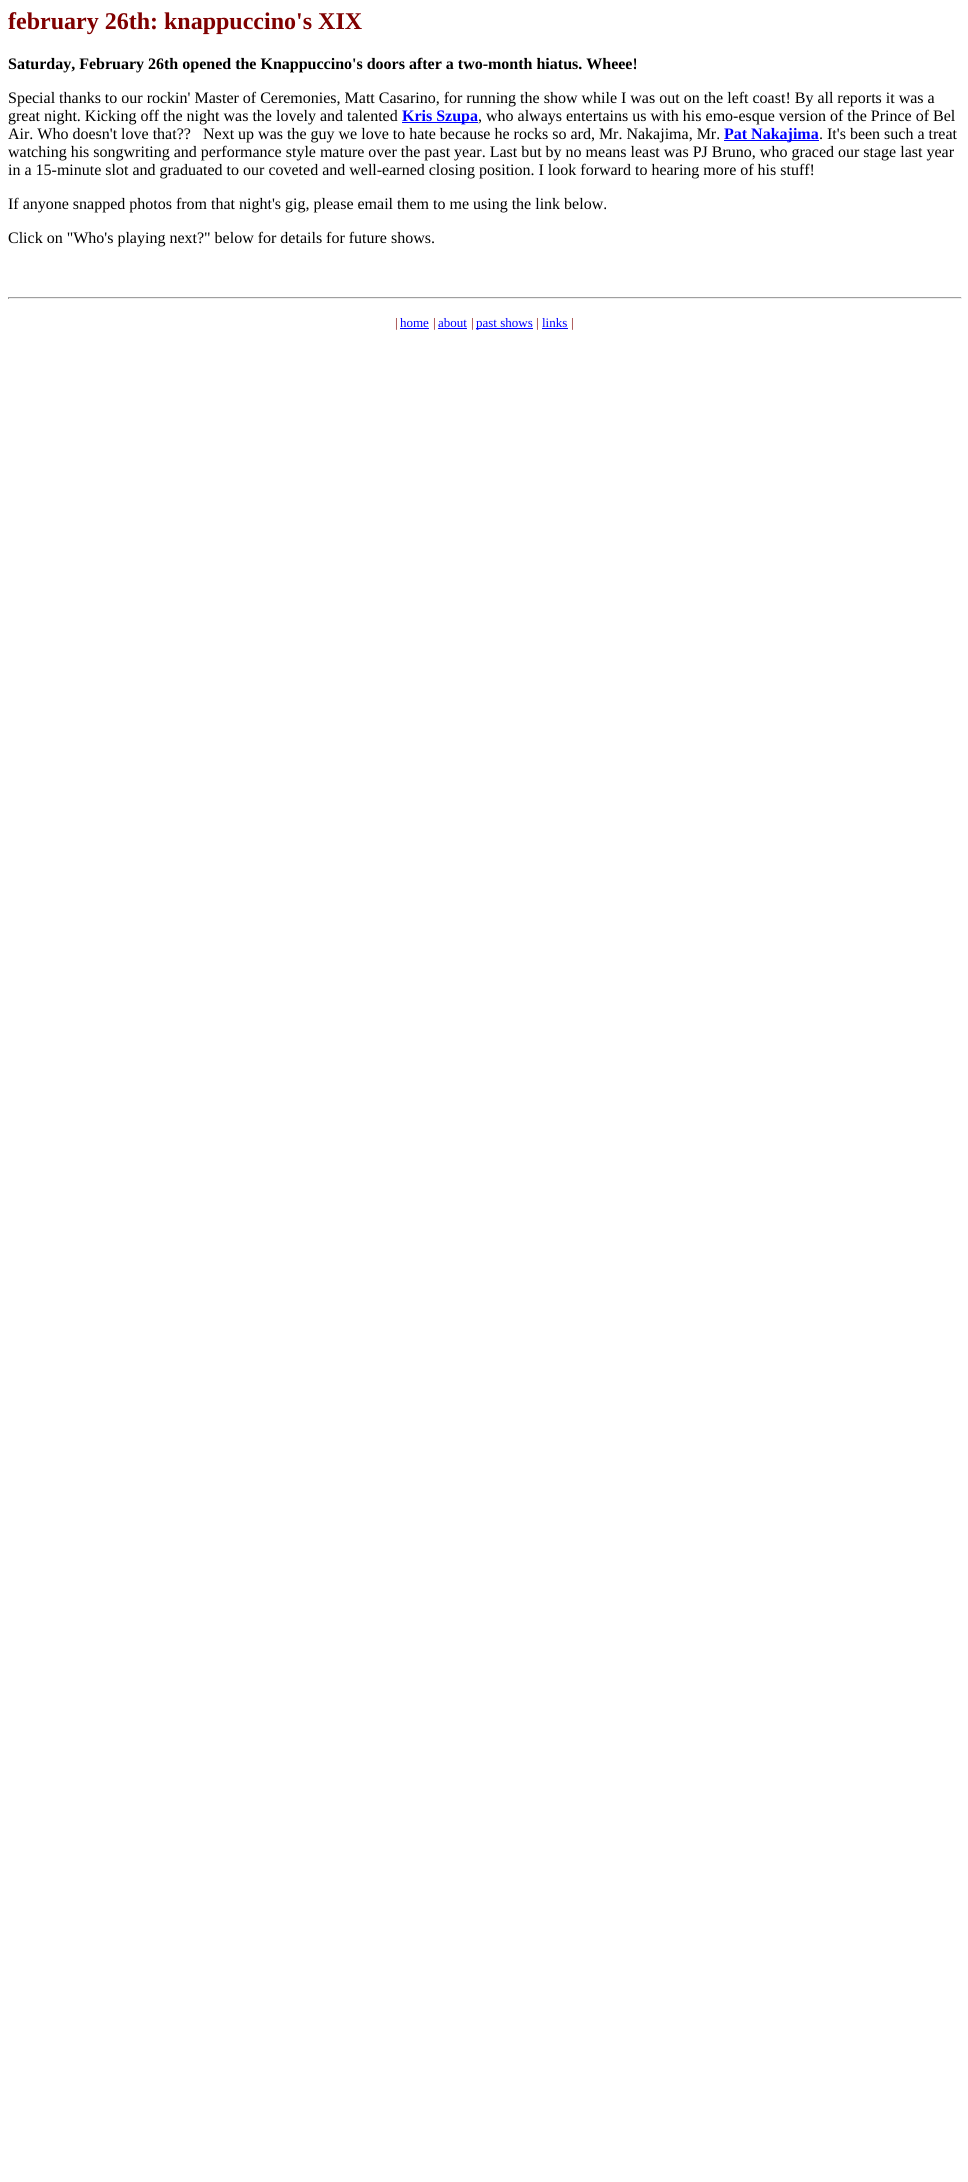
#include <cairo.h>
#include <math.h>
#include <stddef.h>


static void set_color(cairo_t *cr, unsigned color) {
    cairo_set_source_rgb(cr, (color >> 16) / 255.0, (color >> 8 & 255) / 255.0, (color & 255) / 255.0);
}

static void draw_text(cairo_t *cr, double x, double y, const char *s, const char *family, double size, int italic, int bold, unsigned color) {
    cairo_select_font_face(cr, family, italic ? CAIRO_FONT_SLANT_ITALIC : CAIRO_FONT_SLANT_NORMAL,
        bold ? CAIRO_FONT_WEIGHT_BOLD : CAIRO_FONT_WEIGHT_NORMAL);
    cairo_set_font_size(cr, size);
    set_color(cr, color);
    cairo_move_to(cr, x, y);
    cairo_show_text(cr, s);
}

static void fill_rect(cairo_t *cr, double x, double y, double w, double h, unsigned color) {
    set_color(cr, color);
    cairo_rectangle(cr, x, y, w, h);
    cairo_fill(cr);
}

int main(void) {
    cairo_surface_t *surface = cairo_image_surface_create(CAIRO_FORMAT_RGB24, 968, 2182);
    cairo_t *cr = cairo_create(surface);
    cairo_font_options_t *options = cairo_font_options_create();
    cairo_font_options_set_hint_metrics(options, CAIRO_HINT_METRICS_OFF);
    cairo_font_options_set_hint_style(options, CAIRO_HINT_STYLE_NONE);
    cairo_set_font_options(cr, options);
    cairo_set_miter_limit(cr, 4);
    set_color(cr, 0xFFFFFF);
    cairo_paint(cr);
    draw_text(cr, 8, 29, "february 26th: knappuccino's XIX", "Liberation Serif", 24, 0, 1, 0x800000);
    draw_text(cr, 8, 69, "Saturday, February 26th opened the Knappuccino's doors after a two-month hiatus. Wheee!", "Liberation Serif", 16, 0, 1, 0x000000);
    draw_text(cr, 8, 103, "Special thanks to our rockin' Master of Ceremonies, Matt Casarino, for running the show while I was out on the left coast! By all reports it was a", "Liberation Serif", 16, 0, 0, 0x000000);
    draw_text(cr, 8, 121, "great night. Kicking off the night was the lovely and talented", "Liberation Serif", 16, 0, 0, 0x000000);
    fill_rect(cr, 402, 122, 76, 1, 0x0000FF);
    draw_text(cr, 402, 121, "Kris Szupa", "Liberation Serif", 16, 0, 1, 0x0000FF);
    draw_text(cr, 478, 121, ", who always entertains us with his emo-esque version of the Prince of Bel", "Liberation Serif", 16, 0, 0, 0x000000);
    draw_text(cr, 8, 139, "Air. Who doesn't love that?\077", "Liberation Serif", 16, 0, 0, 0x000000);
    draw_text(cr, 203, 139, "Next up was the guy we love to hate because he rocks so ard, Mr. Nakajima, Mr.", "Liberation Serif", 16, 0, 0, 0x000000);
    fill_rect(cr, 724, 140, 95, 1, 0x0000FF);
    draw_text(cr, 724, 139, "Pat Nakajima", "Liberation Serif", 16, 0, 1, 0x0000FF);
    draw_text(cr, 819, 139, ". It's been such a treat", "Liberation Serif", 16, 0, 0, 0x000000);
    draw_text(cr, 8, 157, "watching his songwriting and performance style mature over the past year. Last but by no means least was PJ Bruno, who graced our stage last year", "Liberation Serif", 16, 0, 0, 0x000000);
    draw_text(cr, 8, 175, "in a 15-minute slot and graduated to our coveted and well-earned closing position. I look forward to hearing more of his stuff!", "Liberation Serif", 16, 0, 0, 0x000000);
    draw_text(cr, 8, 209, "If anyone snapped photos from that night's gig, please email them to me using the link below.", "Liberation Serif", 16, 0, 0, 0x000000);
    draw_text(cr, 8, 243, "Click on \"Who's playing next?\" below for details for future shows.", "Liberation Serif", 16, 0, 0, 0x000000);
    fill_rect(cr, 8, 297, 954, 1, 0x9F9F9F);
    fill_rect(cr, 961, 297, 1, 2, 0xEEEEEE);
    fill_rect(cr, 8, 298, 954, 1, 0xEEEEEE);
    fill_rect(cr, 8, 297, 1, 2, 0x9F9F9F);
    draw_text(cr, 395, 327, "|", "Liberation Serif", 13, 0, 0, 0x800000);
    draw_text(cr, 400, 327, "home", "Liberation Serif", 13, 0, 0, 0x0000FF);
    fill_rect(cr, 400, 328, 29, 1, 0x0000FF);
    draw_text(cr, 433, 327, "|", "Liberation Serif", 13, 0, 0, 0x800000);
    draw_text(cr, 438, 327, "about", "Liberation Serif", 13, 0, 0, 0x0000FF);
    fill_rect(cr, 438, 328, 29, 1, 0x0000FF);
    draw_text(cr, 471, 327, "|", "Liberation Serif", 13, 0, 0, 0x800000);
    fill_rect(cr, 476, 328, 57, 1, 0x0000FF);
    draw_text(cr, 476, 327, "past shows", "Liberation Serif", 13, 0, 0, 0x0000FF);
    draw_text(cr, 536, 327, "|", "Liberation Serif", 13, 0, 0, 0x800000);
    draw_text(cr, 542, 327, "links", "Liberation Serif", 13, 0, 0, 0x0000FF);
    fill_rect(cr, 542, 328, 26, 1, 0x0000FF);
    draw_text(cr, 571, 327, "|", "Liberation Serif", 13, 0, 0, 0x800000);
    cairo_surface_write_to_png(surface, "output.png");
    cairo_font_options_destroy(options);
    cairo_destroy(cr);
    cairo_surface_destroy(surface);
    return 0;
}
